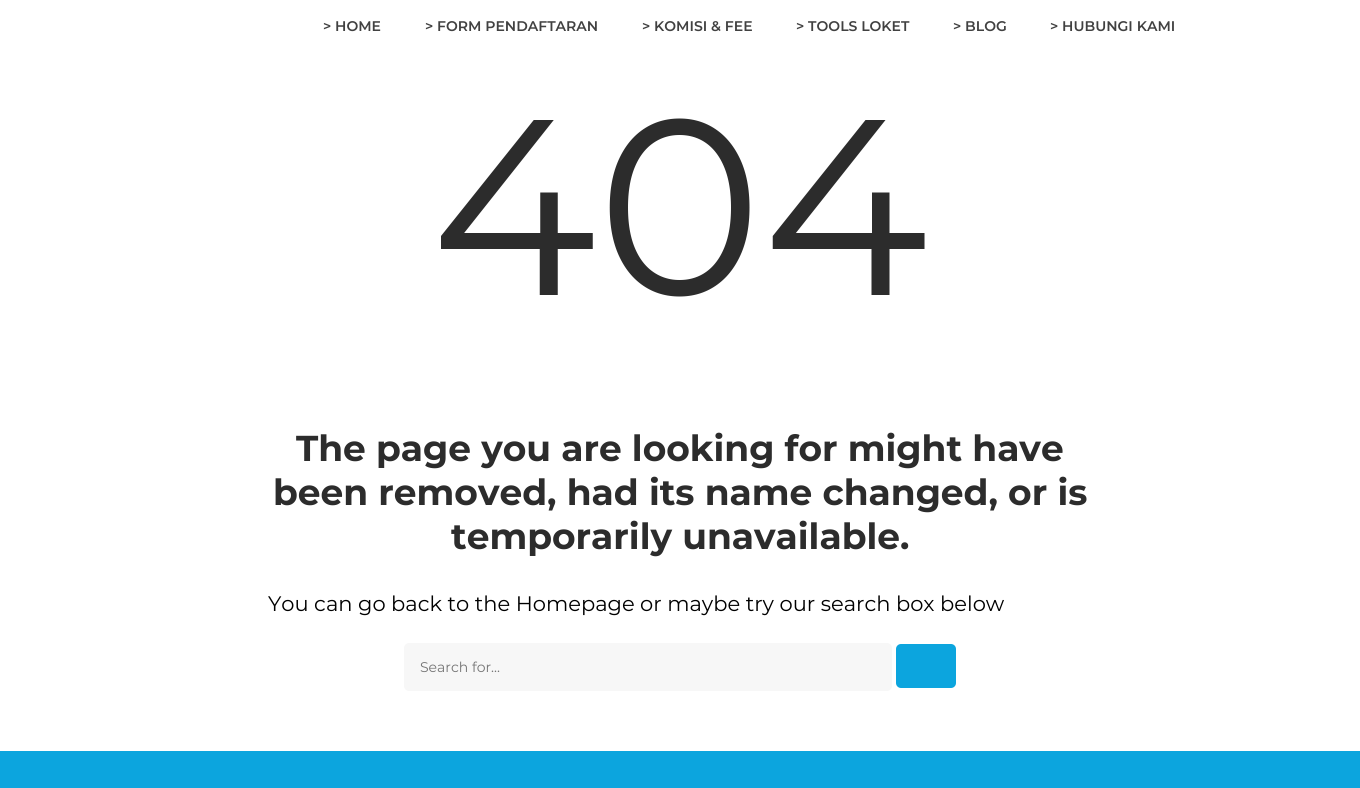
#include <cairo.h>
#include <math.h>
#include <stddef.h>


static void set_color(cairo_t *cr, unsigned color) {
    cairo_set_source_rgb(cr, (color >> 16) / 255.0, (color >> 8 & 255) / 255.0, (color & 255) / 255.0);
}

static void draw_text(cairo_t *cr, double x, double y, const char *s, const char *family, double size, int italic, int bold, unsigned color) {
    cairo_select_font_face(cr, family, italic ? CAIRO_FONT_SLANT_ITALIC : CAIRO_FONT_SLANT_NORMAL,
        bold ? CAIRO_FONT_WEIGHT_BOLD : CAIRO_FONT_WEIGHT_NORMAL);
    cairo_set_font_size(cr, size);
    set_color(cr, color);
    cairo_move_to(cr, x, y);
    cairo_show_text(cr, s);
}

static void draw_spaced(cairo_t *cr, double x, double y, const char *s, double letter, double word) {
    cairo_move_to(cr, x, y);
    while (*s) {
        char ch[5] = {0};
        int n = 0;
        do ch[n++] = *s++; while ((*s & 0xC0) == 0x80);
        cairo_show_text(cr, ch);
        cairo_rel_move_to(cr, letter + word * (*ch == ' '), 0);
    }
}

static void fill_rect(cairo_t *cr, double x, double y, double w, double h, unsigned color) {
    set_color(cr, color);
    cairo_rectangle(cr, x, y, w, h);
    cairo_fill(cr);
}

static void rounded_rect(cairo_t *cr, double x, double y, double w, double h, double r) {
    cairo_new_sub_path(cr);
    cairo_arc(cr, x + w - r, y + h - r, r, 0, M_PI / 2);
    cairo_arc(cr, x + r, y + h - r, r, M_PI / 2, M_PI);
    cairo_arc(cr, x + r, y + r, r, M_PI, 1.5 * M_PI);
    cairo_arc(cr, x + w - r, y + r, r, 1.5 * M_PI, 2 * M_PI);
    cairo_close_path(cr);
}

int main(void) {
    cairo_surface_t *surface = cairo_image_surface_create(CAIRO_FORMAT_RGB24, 1360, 788);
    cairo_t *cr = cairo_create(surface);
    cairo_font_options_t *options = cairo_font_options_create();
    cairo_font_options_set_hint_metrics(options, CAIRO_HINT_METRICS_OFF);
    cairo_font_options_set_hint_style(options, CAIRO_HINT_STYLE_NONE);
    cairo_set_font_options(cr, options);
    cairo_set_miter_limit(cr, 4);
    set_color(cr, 0xFFFFFF);
    cairo_paint(cr);
    draw_text(cr, 323, 31, "> HOME", "Montserrat SemiBold", 14, 0, 0, 0x414141);
    draw_text(cr, 425, 31, "> FORM PENDAFTARAN", "Montserrat SemiBold", 14, 0, 0, 0x414141);
    draw_text(cr, 642, 31, "> KOMISI & FEE", "Montserrat SemiBold", 14, 0, 0, 0x414141);
    draw_text(cr, 796, 31, "> TOOLS LOKET", "Montserrat SemiBold", 14, 0, 0, 0x414141);
    draw_text(cr, 953, 31, "> BLOG", "Montserrat SemiBold", 14, 0, 0, 0x414141);
    draw_text(cr, 1050, 31, "> HUBUNGI KAMI", "Montserrat SemiBold", 14, 0, 0, 0x414141);
    cairo_select_font_face(cr, "Montserrat", CAIRO_FONT_SLANT_NORMAL, CAIRO_FONT_WEIGHT_NORMAL);
    cairo_set_font_size(cr, 250);
    set_color(cr, 0x2C2C2C);
    draw_spaced(cr, 431, 295, "404", 0.5, 0);
    draw_text(cr, 296, 461, "The page you are looking for might have", "Montserrat", 36, 0, 1, 0x2C2C2C);
    draw_text(cr, 273, 505, "been removed, had its name changed, or is", "Montserrat", 36, 0, 1, 0x2C2C2C);
    draw_text(cr, 451, 549, "temporarily unavailable.", "Montserrat", 36, 0, 1, 0x2C2C2C);
    draw_text(cr, 268, 611, "You can go back to the Homepage or maybe try our search box below", "Montserrat", 21, 0, 0, 0x000000);
    set_color(cr, 0xF7F7F7);
    rounded_rect(cr, 404, 643, 488, 48, 5);
    cairo_fill(cr);
    draw_text(cr, 420, 672, "Search for...", "Montserrat", 14, 0, 0, 0x757575);
    set_color(cr, 0x0CA5DE);
    rounded_rect(cr, 896, 644, 60, 44, 5);
    cairo_fill(cr);
    fill_rect(cr, 0, 751, 1360, 37, 0x0CA5DE);
    cairo_surface_write_to_png(surface, "output.png");
    cairo_font_options_destroy(options);
    cairo_destroy(cr);
    cairo_surface_destroy(surface);
    return 0;
}
